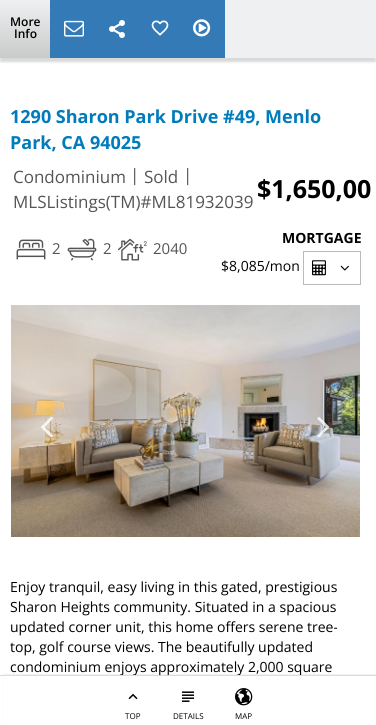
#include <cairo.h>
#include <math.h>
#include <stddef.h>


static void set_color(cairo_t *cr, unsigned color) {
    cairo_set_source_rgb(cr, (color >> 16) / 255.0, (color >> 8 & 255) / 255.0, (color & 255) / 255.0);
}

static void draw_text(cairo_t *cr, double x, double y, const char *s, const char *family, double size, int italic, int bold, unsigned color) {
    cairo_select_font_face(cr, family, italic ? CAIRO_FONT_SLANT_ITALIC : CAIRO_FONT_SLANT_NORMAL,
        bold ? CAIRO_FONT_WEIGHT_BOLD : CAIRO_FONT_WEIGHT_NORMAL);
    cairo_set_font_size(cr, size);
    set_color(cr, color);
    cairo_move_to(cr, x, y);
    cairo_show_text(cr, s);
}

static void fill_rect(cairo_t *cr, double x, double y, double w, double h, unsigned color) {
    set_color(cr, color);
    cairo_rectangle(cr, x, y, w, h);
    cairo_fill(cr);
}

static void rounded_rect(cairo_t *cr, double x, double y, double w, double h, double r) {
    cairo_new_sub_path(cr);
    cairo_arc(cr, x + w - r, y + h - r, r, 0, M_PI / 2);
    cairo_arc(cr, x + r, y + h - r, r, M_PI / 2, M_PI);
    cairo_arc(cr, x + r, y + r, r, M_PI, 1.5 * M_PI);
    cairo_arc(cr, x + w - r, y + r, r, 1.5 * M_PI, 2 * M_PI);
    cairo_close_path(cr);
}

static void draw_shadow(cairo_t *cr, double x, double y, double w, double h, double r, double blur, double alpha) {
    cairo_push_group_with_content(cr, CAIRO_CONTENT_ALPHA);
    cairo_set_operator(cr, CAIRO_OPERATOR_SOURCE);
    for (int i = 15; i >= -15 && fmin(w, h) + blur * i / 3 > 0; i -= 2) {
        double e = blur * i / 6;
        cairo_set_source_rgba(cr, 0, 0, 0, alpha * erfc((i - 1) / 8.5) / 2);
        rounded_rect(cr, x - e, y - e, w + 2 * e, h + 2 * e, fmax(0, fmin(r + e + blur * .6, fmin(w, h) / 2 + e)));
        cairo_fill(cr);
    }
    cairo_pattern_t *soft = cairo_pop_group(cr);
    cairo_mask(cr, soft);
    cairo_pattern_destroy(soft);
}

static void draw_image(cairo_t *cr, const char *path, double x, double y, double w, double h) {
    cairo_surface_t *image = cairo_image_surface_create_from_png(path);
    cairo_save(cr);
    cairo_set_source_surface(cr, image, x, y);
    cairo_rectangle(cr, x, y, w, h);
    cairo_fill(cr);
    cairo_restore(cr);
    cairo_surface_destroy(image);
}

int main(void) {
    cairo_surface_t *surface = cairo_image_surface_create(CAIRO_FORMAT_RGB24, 376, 725);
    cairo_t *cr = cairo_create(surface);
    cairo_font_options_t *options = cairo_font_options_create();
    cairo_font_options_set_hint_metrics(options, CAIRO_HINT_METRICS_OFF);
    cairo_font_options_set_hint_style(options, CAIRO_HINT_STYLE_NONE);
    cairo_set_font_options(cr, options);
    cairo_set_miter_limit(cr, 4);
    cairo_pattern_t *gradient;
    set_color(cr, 0xFFFFFF);
    cairo_paint(cr);
    set_color(cr, 0x000000);
    draw_shadow(cr, 0, 4, 376, 58, 0, 1, 0.15);
    fill_rect(cr, 225, 0, 151, 58, 0xEFF0F2);
    gradient = cairo_pattern_create_linear(25, 0, 25, 58);
    cairo_pattern_add_color_stop_rgba(gradient, 0, 0.937, 0.941, 0.945, 1);
    cairo_pattern_add_color_stop_rgba(gradient, 1, 0.788, 0.792, 0.792, 1);
    cairo_set_source(cr, gradient);
    cairo_pattern_destroy(gradient);
    cairo_rectangle(cr, 0, 0, 50, 58);
    cairo_fill(cr);
    draw_text(cr, 10, 26, "More", "Open Sans SemiBold", 12, 0, 0, 0x000000);
    draw_text(cr, 14, 38, "Info", "Open Sans SemiBold", 12, 0, 0, 0x000000);
    fill_rect(cr, 50, 0, 175, 58, 0x337AB7);
    draw_image(cr, "assets/img1.png", 64, 20, 20, 17);
    draw_image(cr, "assets/img2.png", 109, 20, 16, 18);
    draw_image(cr, "assets/img3.png", 151, 20, 18, 16);
    draw_image(cr, "assets/img4.png", 193, 19, 18, 18);
    draw_text(cr, 10, 123, "1290 Sharon Park Drive #49, Menlo", "Open Sans", 18, 0, 1, 0x007BBB);
    draw_text(cr, 10, 149, "Park, CA 94025", "Open Sans", 18, 0, 1, 0x007BBB);
    draw_text(cr, 13, 183, "Condominium", "Open Sans", 17, 0, 0, 0x555555);
    draw_text(cr, 130, 181, "|", "Open Sans", 17, 0, 0, 0x555555);
    draw_text(cr, 144, 183, "Sold", "Open Sans", 17, 0, 0, 0x555555);
    draw_text(cr, 183, 181, "|", "Open Sans", 17, 0, 0, 0x555555);
    draw_text(cr, 13, 208, "MLSListings(TM)#ML81932039", "Open Sans", 17, 0, 0, 0x555555);
    draw_text(cr, 257, 198, "$1,650,00", "Open Sans", 25, 0, 1, 0x000000);
    draw_image(cr, "assets/img5.png", 16, 239, 30, 21);
    draw_text(cr, 52, 254, "2", "Open Sans", 15, 0, 0, 0x555555);
    draw_image(cr, "assets/img6.png", 67, 238, 30, 23);
    draw_text(cr, 103, 254, "2", "Open Sans", 15, 0, 0, 0x555555);
    draw_image(cr, "assets/img7.png", 118, 238, 29, 23);
    draw_text(cr, 153, 254, "2040", "Open Sans", 15, 0, 0, 0x555555);
    draw_text(cr, 282, 243, "MORTGAGE", "Open Sans", 14, 0, 1, 0x000000);
    draw_text(cr, 221, 271, "$8,085/mon", "Open Sans", 14, 0, 0, 0x000000);
    cairo_rectangle(cr, 303.5, 251.5, 57, 33);
    set_color(cr, 0xBBBBBB);
    cairo_set_line_width(cr, 1);
    cairo_stroke(cr);
    draw_image(cr, "assets/img8.png", 312, 260, 14, 16);
    draw_image(cr, "assets/img9.png", 340, 265, 9, 6);
    draw_image(cr, "assets/img10.png", 11, 305, 349, 232);
    draw_image(cr, "assets/img11.png", 41, 416, 12, 22);
    draw_image(cr, "assets/img12.png", 317, 417, 13, 21);
    draw_text(cr, 10, 592, "Enjoy tranquil, easy living in this gated, prestigious", "Open Sans", 14, 0, 0, 0x000000);
    draw_text(cr, 10, 612, "Sharon Heights community. Situated in a spacious", "Open Sans", 14, 0, 0, 0x000000);
    draw_text(cr, 10, 632, "updated corner unit, this home offers serene tree-", "Open Sans", 14, 0, 0, 0x000000);
    draw_text(cr, 10, 652, "top, golf course views. The beautifully updated", "Open Sans", 14, 0, 0, 0x000000);
    draw_text(cr, 10, 672, "condominium enjoys approximately 2,000 square", "Open Sans", 14, 0, 0, 0x000000);
    set_color(cr, 0x000000);
    draw_shadow(cr, 4, 675, 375, 50, 0, 1, 0.15);
    fill_rect(cr, 3, 676, 373, 49, 0xFFFFFF);
    fill_rect(cr, 0, 675, 376, 1, 0xDBDBDB);
    draw_image(cr, "assets/img13.png", 128, 693, 10, 7);
    draw_text(cr, 125, 719, "TOP", "Open Sans", 8, 0, 0, 0x000000);
    draw_image(cr, "assets/img14.png", 182, 691, 12, 11);
    draw_text(cr, 173, 719, "DETAILS", "Open Sans", 8, 0, 0, 0x000000);
    draw_image(cr, "assets/img15.png", 235, 688, 18, 18);
    draw_text(cr, 235, 719, "MAP", "Open Sans", 8, 0, 0, 0x000000);
    cairo_surface_write_to_png(surface, "output.png");
    cairo_font_options_destroy(options);
    cairo_destroy(cr);
    cairo_surface_destroy(surface);
    return 0;
}
